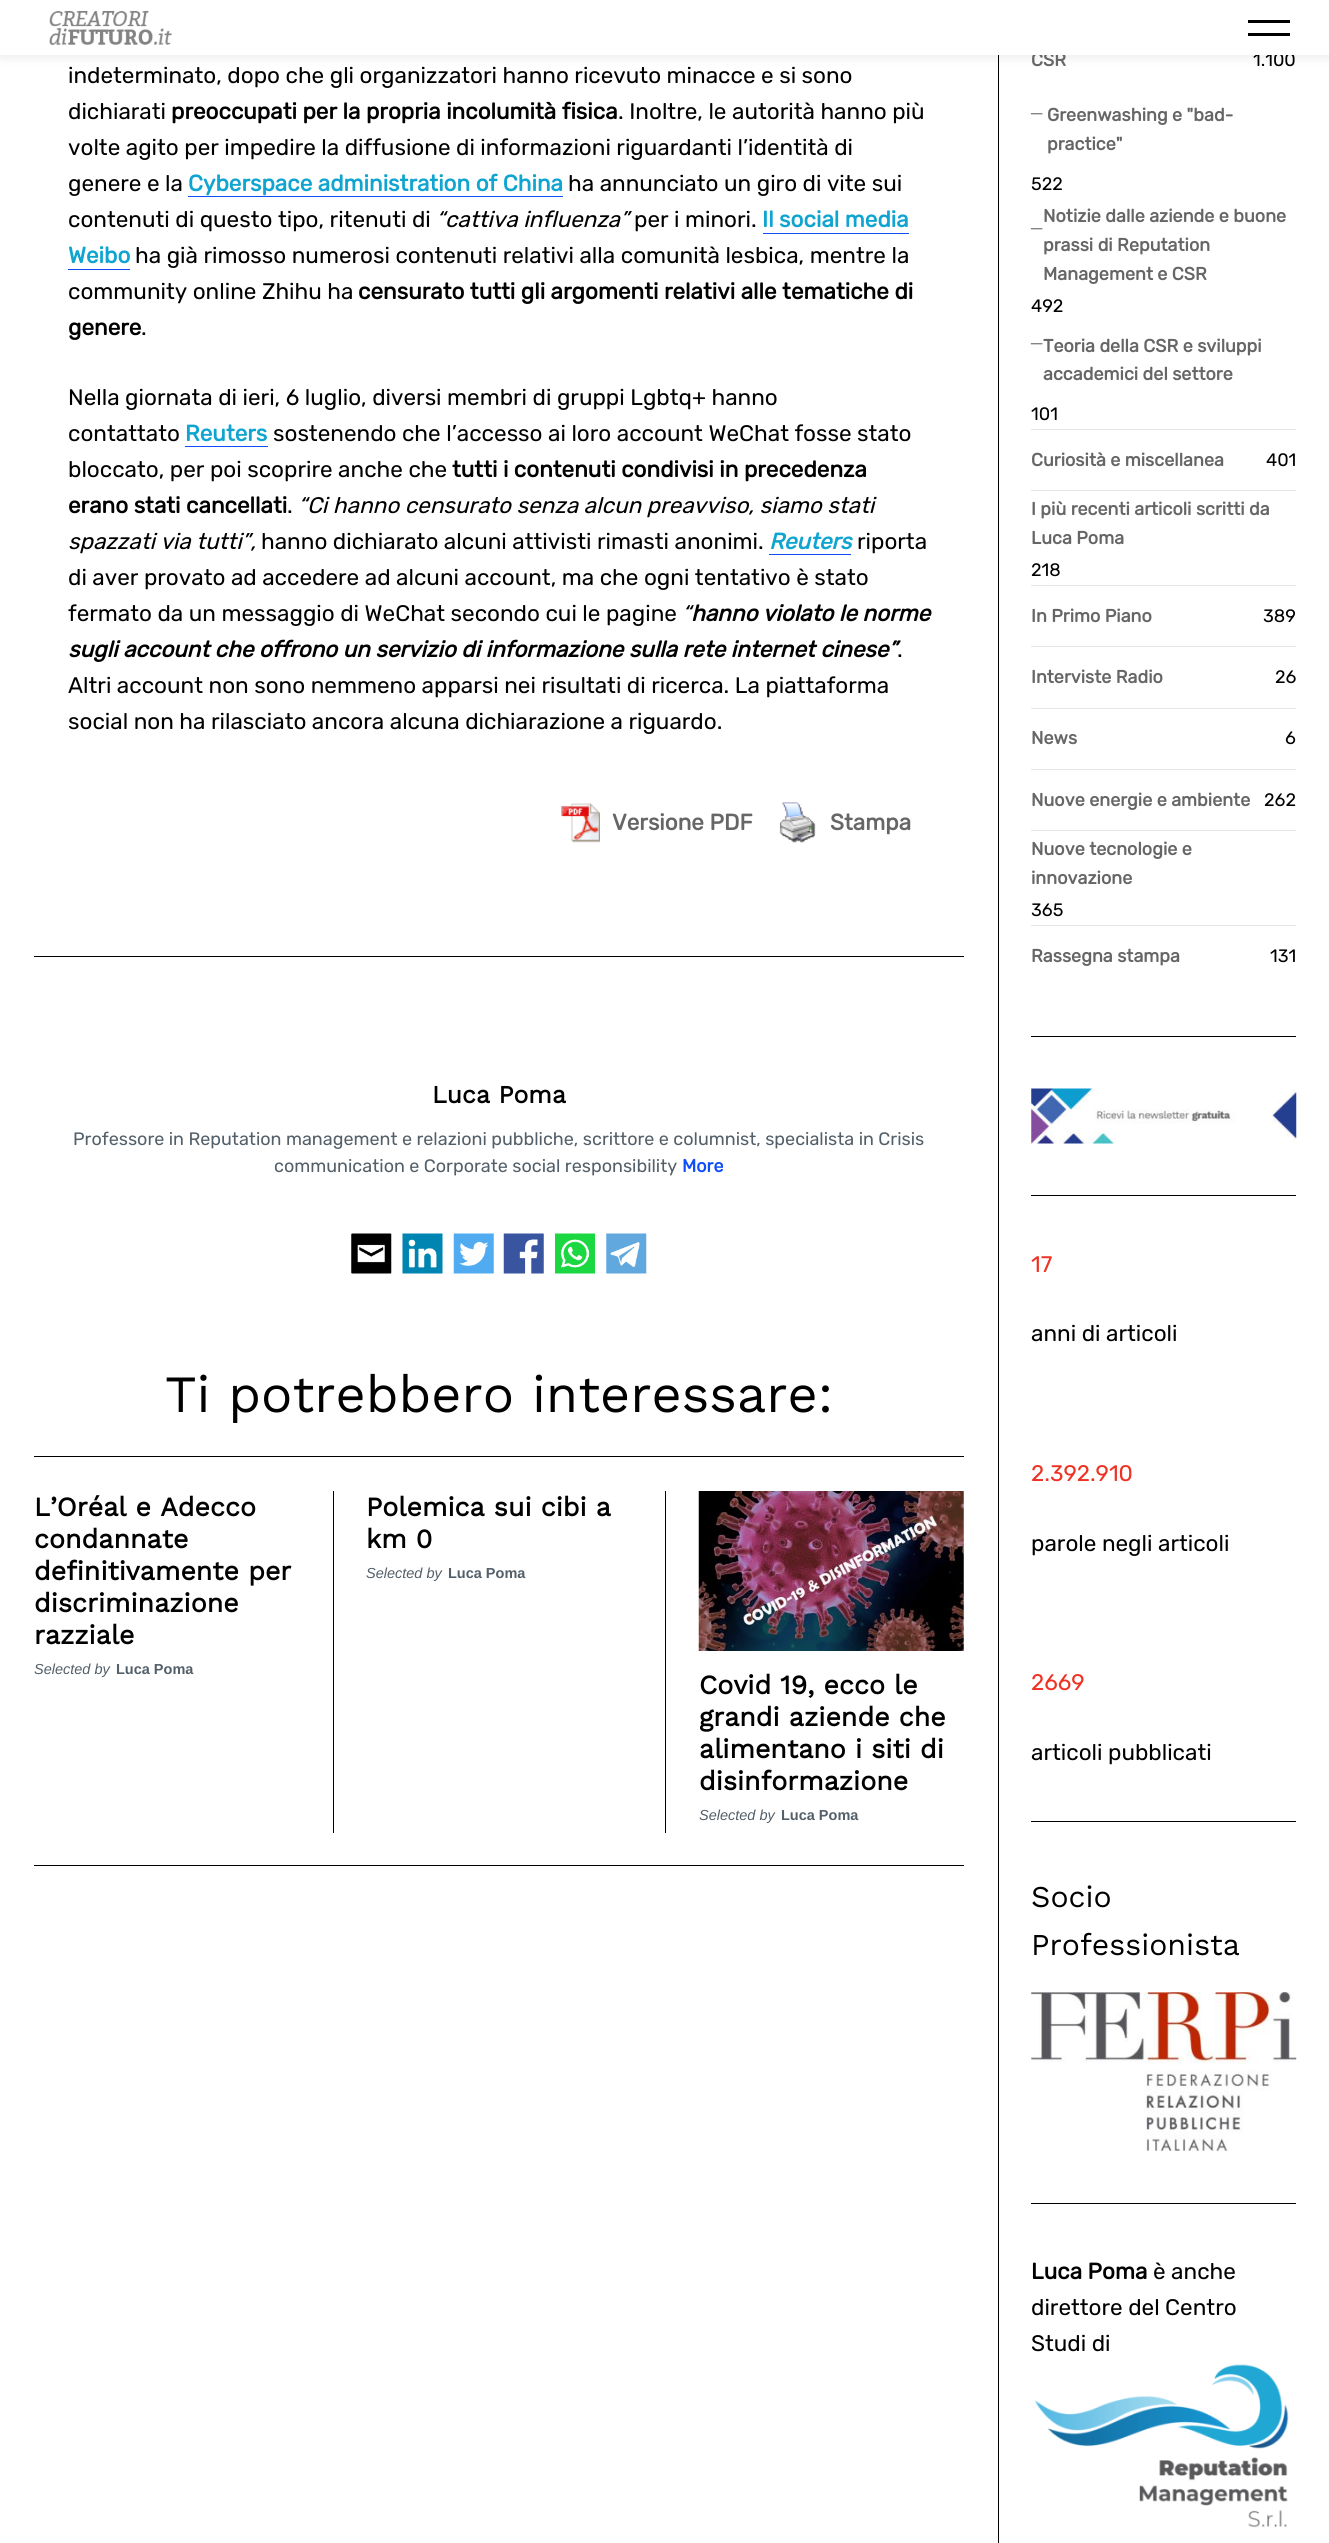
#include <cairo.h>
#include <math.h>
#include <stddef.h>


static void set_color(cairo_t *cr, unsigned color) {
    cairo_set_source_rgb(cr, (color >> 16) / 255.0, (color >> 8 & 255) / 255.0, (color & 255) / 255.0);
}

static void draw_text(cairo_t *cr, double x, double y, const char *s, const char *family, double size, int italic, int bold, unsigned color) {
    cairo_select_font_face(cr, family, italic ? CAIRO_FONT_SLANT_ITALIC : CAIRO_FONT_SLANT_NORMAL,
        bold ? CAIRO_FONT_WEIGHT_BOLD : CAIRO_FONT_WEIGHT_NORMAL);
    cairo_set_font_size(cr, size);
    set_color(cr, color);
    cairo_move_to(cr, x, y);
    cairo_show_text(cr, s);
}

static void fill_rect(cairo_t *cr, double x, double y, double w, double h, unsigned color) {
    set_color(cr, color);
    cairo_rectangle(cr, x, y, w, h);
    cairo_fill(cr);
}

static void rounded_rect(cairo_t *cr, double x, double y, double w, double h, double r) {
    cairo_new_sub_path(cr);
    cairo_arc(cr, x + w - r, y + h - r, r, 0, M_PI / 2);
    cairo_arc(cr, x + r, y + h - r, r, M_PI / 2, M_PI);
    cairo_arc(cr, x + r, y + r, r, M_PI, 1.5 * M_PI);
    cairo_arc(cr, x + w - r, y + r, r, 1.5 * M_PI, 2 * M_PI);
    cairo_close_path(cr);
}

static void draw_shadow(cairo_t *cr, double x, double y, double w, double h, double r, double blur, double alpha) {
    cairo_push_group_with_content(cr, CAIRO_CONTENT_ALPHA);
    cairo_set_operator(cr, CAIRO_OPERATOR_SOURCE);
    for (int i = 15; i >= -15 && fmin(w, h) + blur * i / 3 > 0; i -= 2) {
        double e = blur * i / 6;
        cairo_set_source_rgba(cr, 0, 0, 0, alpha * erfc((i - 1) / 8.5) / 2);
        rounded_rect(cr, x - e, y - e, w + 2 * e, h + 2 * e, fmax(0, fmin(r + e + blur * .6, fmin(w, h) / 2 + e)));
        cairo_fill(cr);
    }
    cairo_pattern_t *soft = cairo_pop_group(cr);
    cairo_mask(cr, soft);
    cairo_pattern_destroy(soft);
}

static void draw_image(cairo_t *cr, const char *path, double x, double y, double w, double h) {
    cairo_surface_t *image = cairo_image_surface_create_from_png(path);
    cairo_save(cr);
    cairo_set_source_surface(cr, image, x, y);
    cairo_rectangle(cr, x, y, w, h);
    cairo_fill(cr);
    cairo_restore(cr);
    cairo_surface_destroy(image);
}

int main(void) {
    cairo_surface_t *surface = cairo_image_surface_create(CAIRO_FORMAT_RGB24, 1329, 2543);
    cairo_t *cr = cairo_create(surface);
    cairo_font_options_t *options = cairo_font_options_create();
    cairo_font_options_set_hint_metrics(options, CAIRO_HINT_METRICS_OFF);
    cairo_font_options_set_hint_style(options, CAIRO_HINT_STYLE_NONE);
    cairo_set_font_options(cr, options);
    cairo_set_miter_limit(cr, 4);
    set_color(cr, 0xFFFFFF);
    cairo_paint(cr);
    fill_rect(cr, 998, 55, 1, 2488, 0x000000);
    set_color(cr, 0x000000);
    draw_shadow(cr, 0, 1, 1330, 55, 0, 6, 0.1);
    draw_text(cr, 1031, 66, "CSR", "Rubik", 18, 0, 1, 0x666666);
    draw_text(cr, 1253, 66, "1.100", "Rubik", 18, 0, 0, 0x000000);
    fill_rect(cr, 0, 0, 1329, 55, 0xFFFFFF);
    draw_image(cr, "assets/img1.png", 49, 10, 123, 36);
    fill_rect(cr, 1248, 20, 42, 3, 0x000000);
    fill_rect(cr, 1248, 33, 42, 3, 0x000000);
    draw_text(cr, 68, 83, "indeterminato, dopo che gli organizzatori hanno ricevuto minacce e si sono", "Rubik", 22.5, 0, 0, 0x000000);
    draw_text(cr, 68, 119, "dichiarati", "Rubik", 22.5, 0, 0, 0x000000);
    draw_text(cr, 171, 119, "preoccupati per la propria incolumità fisica", "Rubik", 22.5, 0, 1, 0x000000);
    draw_text(cr, 618, 119, ". Inoltre, le autorità hanno più", "Rubik", 22.5, 0, 0, 0x000000);
    draw_text(cr, 68, 155, "volte agito per impedire la diffusione di informazioni riguardanti l’identità di", "Rubik", 22.5, 0, 0, 0x000000);
    draw_text(cr, 68, 191, "genere e la", "Rubik", 22.5, 0, 0, 0x000000);
    draw_text(cr, 188, 191, "Cyberspace administration of China", "Rubik", 22.5, 0, 1, 0x10A4D0);
    fill_rect(cr, 188, 196, 375, 1, 0x0F4FFA);
    draw_text(cr, 568, 191, "ha annunciato un giro di vite sui", "Rubik", 22.5, 0, 0, 0x000000);
    draw_text(cr, 68, 227, "contenuti di questo tipo, ritenuti di", "Rubik", 22.5, 0, 0, 0x000000);
    draw_text(cr, 436, 227, "“cattiva influenza”", "Rubik", 22.5, 1, 0, 0x000000);
    draw_text(cr, 634, 227, "per i minori.", "Rubik", 22.5, 0, 0, 0x000000);
    draw_text(cr, 762, 227, "Il social media", "Rubik", 22.5, 0, 1, 0x10A4D0);
    fill_rect(cr, 763, 233, 146, 1, 0x0F4FFA);
    draw_text(cr, 68, 263, "Weibo", "Rubik", 22.5, 0, 1, 0x10A4D0);
    fill_rect(cr, 68, 269, 62, 1, 0x0F4FFA);
    draw_text(cr, 135, 263, "ha già rimosso numerosi contenuti relativi alla comunità lesbica, mentre la", "Rubik", 22.5, 0, 0, 0x000000);
    draw_text(cr, 68, 299, "community online Zhihu ha", "Rubik", 22.5, 0, 0, 0x000000);
    draw_text(cr, 358, 299, "censurato tutti gli argomenti relativi alle tematiche di", "Rubik", 22.5, 0, 1, 0x000000);
    draw_text(cr, 68, 335, "genere", "Rubik", 22.5, 0, 1, 0x000000);
    draw_text(cr, 141, 335, ".", "Rubik", 22.5, 0, 0, 0x000000);
    draw_text(cr, 68, 405, "Nella giornata di ieri, 6 luglio, diversi membri di gruppi Lgbtq+ hanno", "Rubik", 22.5, 0, 0, 0x000000);
    draw_text(cr, 68, 441, "contattato", "Rubik", 22.5, 0, 0, 0x000000);
    draw_text(cr, 185, 441, "Reuters", "Rubik", 22.5, 0, 1, 0x10A4D0);
    fill_rect(cr, 185, 446, 83, 1, 0x0F4FFA);
    draw_text(cr, 273, 441, "sostenendo che l’accesso ai loro account WeChat fosse stato", "Rubik", 22.5, 0, 0, 0x000000);
    draw_text(cr, 68, 477, "bloccato, per poi scoprire anche che", "Rubik", 22.5, 0, 0, 0x000000);
    draw_text(cr, 452, 477, "tutti i contenuti condivisi in precedenza", "Rubik", 22.5, 0, 1, 0x000000);
    draw_text(cr, 68, 513, "erano stati cancellati", "Rubik", 22.5, 0, 1, 0x000000);
    draw_text(cr, 287, 513, ".", "Rubik", 22.5, 0, 0, 0x000000);
    draw_text(cr, 298, 513, "“Ci hanno censurato senza alcun preavviso, siamo stati", "Rubik", 22.5, 1, 0, 0x000000);
    draw_text(cr, 68, 549, "spazzati via tutti”,", "Rubik", 22.5, 1, 0, 0x000000);
    draw_text(cr, 261, 549, "hanno dichiarato alcuni attivisti rimasti anonimi.", "Rubik", 22.5, 0, 0, 0x000000);
    draw_text(cr, 769, 549, "Reuters", "Rubik", 22.5, 1, 1, 0x10A4D0);
    fill_rect(cr, 769, 554, 82, 1, 0x0F4FFA);
    draw_text(cr, 857, 549, "riporta", "Rubik", 22.5, 0, 0, 0x000000);
    draw_text(cr, 68, 585, "di aver provato ad accedere ad alcuni account, ma che ogni tentativo è stato", "Rubik", 22.5, 0, 0, 0x000000);
    draw_text(cr, 68, 621, "fermato da un messaggio di WeChat secondo cui le pagine", "Rubik", 22.5, 0, 0, 0x000000);
    draw_text(cr, 682, 621, "“", "Rubik", 22.5, 1, 0, 0x000000);
    draw_text(cr, 691, 621, "hanno violato le norme", "Rubik", 22.5, 1, 1, 0x000000);
    draw_text(cr, 68, 657, "sugli account che offrono un servizio di informazione sulla rete internet cinese”", "Rubik", 22.5, 1, 1, 0x000000);
    draw_text(cr, 897, 657, ".", "Rubik", 22.5, 0, 0, 0x000000);
    draw_text(cr, 68, 693, "Altri account non sono nemmeno apparsi nei risultati di ricerca. La piattaforma", "Rubik", 22.5, 0, 0, 0x000000);
    draw_text(cr, 68, 729, "social non ha rilasciato ancora alcuna dichiarazione a riguardo.", "Rubik", 22.5, 0, 0, 0x000000);
    draw_image(cr, "assets/img2.png", 561, 803, 39, 40);
    draw_text(cr, 612, 830, "Versione PDF", "Rubik", 22.5, 0, 1, 0x666666);
    draw_image(cr, "assets/img3.png", 779, 802, 37, 41);
    draw_text(cr, 830, 830, "Stampa", "Rubik", 22.5, 0, 1, 0x666666);
    fill_rect(cr, 34, 956, 930, 1, 0x000000);
    draw_text(cr, 432, 1103, "Luca Poma", "Work Sans", 24.75, 0, 1, 0x000000);
    draw_text(cr, 73, 1145, "Professore in Reputation management e relazioni pubbliche, scrittore e columnist, specialista in Crisis", "Rubik", 18, 0, 0, 0x535F69);
    draw_text(cr, 274, 1172, "communication e Corporate social responsibility", "Rubik", 18, 0, 0, 0x535F69);
    draw_text(cr, 682, 1172, "More", "Rubik", 18, 0, 1, 0x0F4FFA);
    draw_image(cr, "assets/img4.png", 351, 1233, 41, 41);
    draw_image(cr, "assets/img5.png", 402, 1233, 41, 41);
    draw_image(cr, "assets/img6.png", 453, 1233, 41, 41);
    draw_image(cr, "assets/img7.png", 503, 1233, 41, 41);
    draw_image(cr, "assets/img8.png", 555, 1233, 40, 41);
    draw_image(cr, "assets/img9.png", 606, 1233, 41, 41);
    draw_text(cr, 165, 1412, "Ti potrebbero interessare:", "Work Sans", 52.25, 0, 0, 0x000000);
    fill_rect(cr, 34, 1456, 930, 1, 0x000000);
    draw_text(cr, 34, 1516, "L’Oréal e Adecco", "Work Sans", 26.75, 0, 1, 0x000000);
    draw_text(cr, 34, 1548, "condannate", "Work Sans", 26.75, 0, 1, 0x000000);
    draw_text(cr, 34, 1580, "definitivamente per", "Work Sans", 26.75, 0, 1, 0x000000);
    draw_text(cr, 34, 1612, "discriminazione", "Work Sans", 26.75, 0, 1, 0x000000);
    draw_text(cr, 34, 1644, "razziale", "Work Sans", 26.75, 0, 1, 0x000000);
    draw_text(cr, 34, 1674, "Selected by", "Liberation Sans", 14.5, 1, 0, 0x535F69);
    draw_text(cr, 116, 1674, "Luca Poma", "Liberation Sans", 14.5, 0, 1, 0x535F69);
    fill_rect(cr, 333, 1491, 1, 342, 0x000000);
    draw_text(cr, 366, 1516, "Polemica sui cibi a", "Work Sans", 26.75, 0, 1, 0x000000);
    draw_text(cr, 366, 1548, "km 0", "Work Sans", 26.75, 0, 1, 0x000000);
    draw_text(cr, 366, 1578, "Selected by", "Liberation Sans", 14.5, 1, 0, 0x535F69);
    draw_text(cr, 448, 1578, "Luca Poma", "Liberation Sans", 14.5, 0, 1, 0x535F69);
    fill_rect(cr, 665, 1491, 1, 342, 0x000000);
    draw_image(cr, "assets/img10.png", 698, 1491, 266, 160);
    draw_text(cr, 699, 1694, "Covid 19, ecco le", "Work Sans", 26.75, 0, 1, 0x000000);
    draw_text(cr, 699, 1726, "grandi aziende che", "Work Sans", 26.75, 0, 1, 0x000000);
    draw_text(cr, 699, 1758, "alimentano i siti di", "Work Sans", 26.75, 0, 1, 0x000000);
    draw_text(cr, 699, 1790, "disinformazione", "Work Sans", 26.75, 0, 1, 0x000000);
    draw_text(cr, 699, 1820, "Selected by", "Liberation Sans", 14.5, 1, 0, 0x535F69);
    draw_text(cr, 781, 1820, "Luca Poma", "Liberation Sans", 14.5, 0, 1, 0x535F69);
    fill_rect(cr, 34, 1865, 930, 1, 0x000000);
    draw_text(cr, 1031, 119, "–", "Liberation Serif", 22.5, 0, 0, 0x666666);
    draw_text(cr, 1047, 121, "Greenwashing e \"bad-", "Rubik", 18, 0, 1, 0x666666);
    draw_text(cr, 1047, 150, "practice\"", "Rubik", 18, 0, 1, 0x666666);
    draw_text(cr, 1031, 190, "522", "Rubik", 18, 0, 0, 0x000000);
    draw_text(cr, 1043, 222, "Notizie dalle aziende e buone", "Rubik", 18, 0, 1, 0x666666);
    draw_text(cr, 1031, 234, "–", "Liberation Serif", 22.5, 0, 0, 0x666666);
    draw_text(cr, 1043, 251, "prassi di Reputation", "Rubik", 18, 0, 1, 0x666666);
    draw_text(cr, 1043, 280, "Management e CSR", "Rubik", 18, 0, 1, 0x666666);
    draw_text(cr, 1031, 312, "492", "Rubik", 18, 0, 0, 0x000000);
    draw_text(cr, 1031, 349, "–", "Liberation Serif", 22.5, 0, 0, 0x666666);
    draw_text(cr, 1043, 352, "Teoria della CSR e sviluppi", "Rubik", 18, 0, 1, 0x666666);
    draw_text(cr, 1043, 380, "accademici del settore", "Rubik", 18, 0, 1, 0x666666);
    draw_text(cr, 1031, 420, "101", "Rubik", 18, 0, 0, 0x000000);
    fill_rect(cr, 1031, 429, 265, 1, 0xE6E6E6);
    draw_text(cr, 1031, 466, "Curiosità e miscellanea", "Rubik", 18, 0, 1, 0x666666);
    draw_text(cr, 1266, 466, "401", "Rubik", 18, 0, 0, 0x000000);
    fill_rect(cr, 1031, 490, 265, 1, 0xE6E6E6);
    draw_text(cr, 1031, 515, "I più recenti articoli scritti da", "Rubik", 18, 0, 1, 0x666666);
    draw_text(cr, 1031, 544, "Luca Poma", "Rubik", 18, 0, 1, 0x666666);
    draw_text(cr, 1031, 576, "218", "Rubik", 18, 0, 0, 0x000000);
    fill_rect(cr, 1031, 585, 265, 1, 0xE6E6E6);
    draw_text(cr, 1031, 622, "In Primo Piano", "Rubik", 18, 0, 1, 0x666666);
    draw_text(cr, 1263, 622, "389", "Rubik", 18, 0, 0, 0x000000);
    fill_rect(cr, 1031, 646, 265, 1, 0xE6E6E6);
    draw_text(cr, 1031, 683, "Interviste Radio", "Rubik", 18, 0, 1, 0x666666);
    draw_text(cr, 1275, 683, "26", "Rubik", 18, 0, 0, 0x000000);
    fill_rect(cr, 1031, 708, 265, 1, 0xE6E6E6);
    draw_text(cr, 1031, 744, "News", "Rubik", 18, 0, 1, 0x666666);
    draw_text(cr, 1285, 744, "6", "Rubik", 18, 0, 0, 0x000000);
    fill_rect(cr, 1031, 769, 265, 1, 0xE6E6E6);
    draw_text(cr, 1031, 806, "Nuove energie e ambiente", "Rubik", 18, 0, 1, 0x666666);
    draw_text(cr, 1264, 806, "262", "Rubik", 18, 0, 0, 0x000000);
    fill_rect(cr, 1031, 830, 265, 1, 0xE6E6E6);
    draw_text(cr, 1031, 855, "Nuove tecnologie e", "Rubik", 18, 0, 1, 0x666666);
    draw_text(cr, 1031, 884, "innovazione", "Rubik", 18, 0, 1, 0x666666);
    draw_text(cr, 1031, 916, "365", "Rubik", 18, 0, 0, 0x000000);
    fill_rect(cr, 1031, 925, 265, 1, 0xE6E6E6);
    draw_text(cr, 1031, 962, "Rassegna stampa", "Rubik", 18, 0, 1, 0x666666);
    draw_text(cr, 1270, 962, "131", "Rubik", 18, 0, 0, 0x000000);
    fill_rect(cr, 1031, 1036, 265, 1, 0x000000);
    draw_image(cr, "assets/img11.png", 1031, 1088, 266, 56);
    fill_rect(cr, 1031, 1195, 265, 1, 0x000000);
    draw_text(cr, 1031, 1272, "17", "Rubik", 22.5, 0, 0, 0xEE3224);
    draw_text(cr, 1031, 1341, "anni di articoli", "Rubik", 22.5, 0, 0, 0x000000);
    draw_text(cr, 1031, 1481, "2.392.910", "Rubik", 22.5, 0, 0, 0xEE3224);
    draw_text(cr, 1031, 1551, "parole negli articoli", "Rubik", 22.5, 0, 0, 0x000000);
    draw_text(cr, 1031, 1690, "2669", "Rubik", 22.5, 0, 0, 0xEE3224);
    draw_text(cr, 1031, 1760, "articoli pubblicati", "Rubik", 22.5, 0, 0, 0x000000);
    fill_rect(cr, 1031, 1821, 265, 1, 0x000000);
    draw_text(cr, 1031, 1907, "Socio", "Work Sans", 30.25, 0, 0, 0x000000);
    draw_text(cr, 1031, 1955, "Professionista", "Work Sans", 30.25, 0, 0, 0x000000);
    draw_image(cr, "assets/img12.png", 1031, 1992, 266, 159);
    fill_rect(cr, 1031, 2203, 265, 1, 0x000000);
    draw_text(cr, 1031, 2279, "Luca Poma", "Rubik", 22.5, 0, 1, 0x000000);
    draw_text(cr, 1153, 2279, "è anche", "Rubik", 22.5, 0, 0, 0x000000);
    draw_text(cr, 1031, 2315, "direttore del Centro", "Rubik", 22.5, 0, 0, 0x000000);
    draw_text(cr, 1031, 2351, "Studi di", "Rubik", 22.5, 0, 0, 0x000000);
    draw_image(cr, "assets/img13.png", 1034, 2364, 255, 164);
    cairo_surface_write_to_png(surface, "output.png");
    cairo_font_options_destroy(options);
    cairo_destroy(cr);
    cairo_surface_destroy(surface);
    return 0;
}
